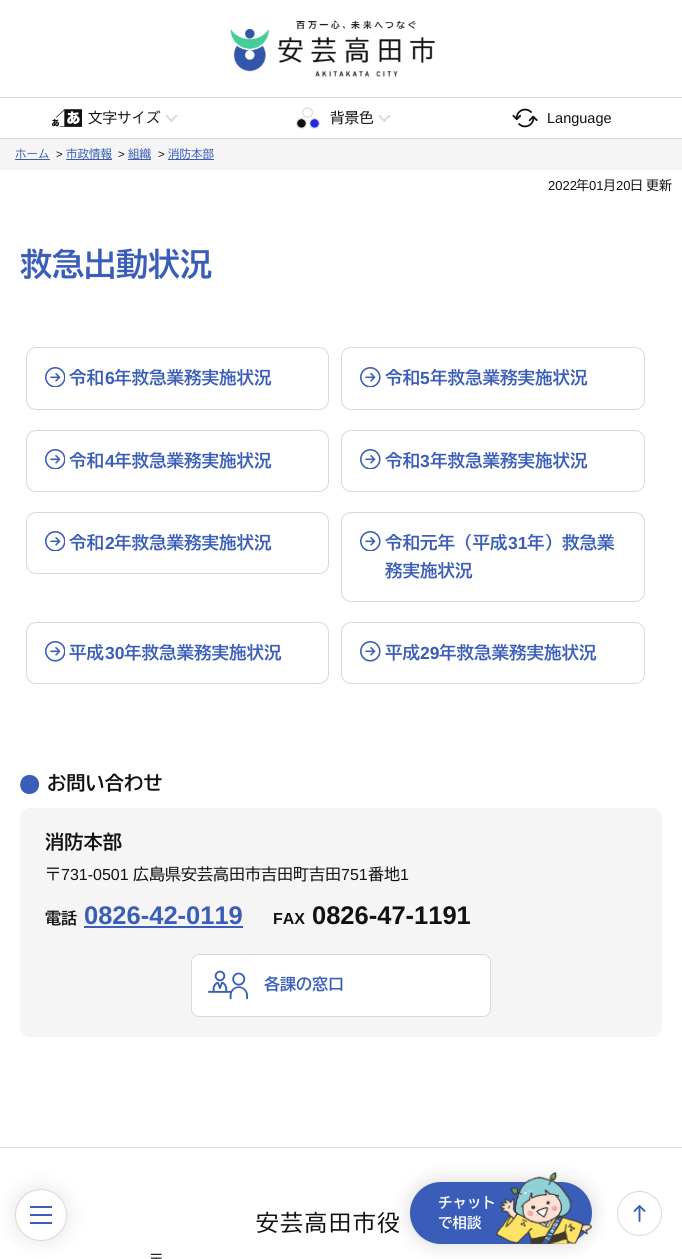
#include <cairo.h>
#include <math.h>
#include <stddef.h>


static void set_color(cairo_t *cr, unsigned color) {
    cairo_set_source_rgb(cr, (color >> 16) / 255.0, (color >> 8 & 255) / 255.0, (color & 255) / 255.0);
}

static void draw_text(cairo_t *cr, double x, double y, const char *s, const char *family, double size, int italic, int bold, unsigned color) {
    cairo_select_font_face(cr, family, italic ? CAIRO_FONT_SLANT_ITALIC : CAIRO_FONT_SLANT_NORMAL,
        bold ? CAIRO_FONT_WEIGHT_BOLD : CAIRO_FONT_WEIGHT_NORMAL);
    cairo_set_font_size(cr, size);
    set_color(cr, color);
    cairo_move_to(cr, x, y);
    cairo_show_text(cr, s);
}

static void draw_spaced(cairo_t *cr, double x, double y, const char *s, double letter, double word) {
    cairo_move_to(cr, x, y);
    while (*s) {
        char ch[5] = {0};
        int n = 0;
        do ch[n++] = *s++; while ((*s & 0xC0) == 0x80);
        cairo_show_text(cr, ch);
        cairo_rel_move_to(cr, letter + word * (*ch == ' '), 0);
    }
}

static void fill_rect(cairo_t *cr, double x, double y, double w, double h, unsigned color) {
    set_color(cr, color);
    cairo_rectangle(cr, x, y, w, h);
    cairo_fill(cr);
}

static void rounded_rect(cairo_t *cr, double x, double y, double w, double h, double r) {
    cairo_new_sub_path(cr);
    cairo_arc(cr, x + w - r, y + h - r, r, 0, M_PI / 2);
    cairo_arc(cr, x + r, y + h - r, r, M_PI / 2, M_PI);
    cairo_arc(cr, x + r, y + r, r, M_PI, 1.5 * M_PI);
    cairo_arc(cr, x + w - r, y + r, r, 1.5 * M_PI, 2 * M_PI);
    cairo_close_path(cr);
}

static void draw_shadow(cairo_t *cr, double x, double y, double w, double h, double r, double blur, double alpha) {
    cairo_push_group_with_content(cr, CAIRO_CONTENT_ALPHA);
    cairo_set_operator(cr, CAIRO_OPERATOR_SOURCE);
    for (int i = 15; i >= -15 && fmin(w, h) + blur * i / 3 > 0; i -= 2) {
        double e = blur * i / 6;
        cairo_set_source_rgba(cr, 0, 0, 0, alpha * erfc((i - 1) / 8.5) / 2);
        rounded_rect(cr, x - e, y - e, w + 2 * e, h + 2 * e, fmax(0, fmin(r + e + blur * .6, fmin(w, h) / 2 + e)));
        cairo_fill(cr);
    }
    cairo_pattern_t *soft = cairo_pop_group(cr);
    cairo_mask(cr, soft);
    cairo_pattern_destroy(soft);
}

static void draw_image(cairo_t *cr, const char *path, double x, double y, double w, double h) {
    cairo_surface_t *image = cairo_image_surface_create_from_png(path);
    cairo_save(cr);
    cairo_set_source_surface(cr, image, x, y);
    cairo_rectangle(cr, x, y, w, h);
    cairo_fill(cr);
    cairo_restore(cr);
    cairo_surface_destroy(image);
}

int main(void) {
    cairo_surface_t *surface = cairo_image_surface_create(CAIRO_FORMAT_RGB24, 682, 1259);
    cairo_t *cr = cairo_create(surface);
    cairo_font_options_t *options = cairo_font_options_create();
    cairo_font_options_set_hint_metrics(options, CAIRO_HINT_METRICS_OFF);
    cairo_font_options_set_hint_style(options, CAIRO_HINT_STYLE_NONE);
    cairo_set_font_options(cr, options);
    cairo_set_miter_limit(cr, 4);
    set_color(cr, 0xFFFFFF);
    cairo_paint(cr);
    draw_image(cr, "assets/img1.png", 230, 20, 205, 57);
    fill_rect(cr, 0, 97, 682, 1, 0xD9D9D9);
    draw_image(cr, "assets/img2.png", 52, 109, 30, 18);
    draw_text(cr, 88, 123, "文字サイズ", "BIZ UDGothic", 14.5, 0, 0, 0x111111);
    set_color(cr, 0xD9D9D9);
    cairo_new_path(cr);
    cairo_move_to(cr, 176, 114.5);
    cairo_line_to(cr, 177.5, 116);
    cairo_line_to(cr, 171.5, 122);
    cairo_line_to(cr, 170, 121);
    cairo_close_path(cr);
    cairo_fill(cr);
    cairo_new_path(cr);
    cairo_move_to(cr, 166.5, 114.5);
    cairo_line_to(cr, 173, 121);
    cairo_line_to(cr, 171.5, 122);
    cairo_line_to(cr, 165.5, 116);
    cairo_close_path(cr);
    cairo_fill(cr);
    draw_image(cr, "assets/img3.png", 296, 107, 24, 22);
    draw_text(cr, 330, 123, "背景色", "BIZ UDGothic", 14.5, 0, 0, 0x111111);
    set_color(cr, 0xD9D9D9);
    cairo_new_path(cr);
    cairo_move_to(cr, 389, 114.5);
    cairo_line_to(cr, 390.5, 116);
    cairo_line_to(cr, 384.5, 122);
    cairo_line_to(cr, 383, 121);
    cairo_close_path(cr);
    cairo_fill(cr);
    cairo_new_path(cr);
    cairo_move_to(cr, 379.5, 114.5);
    cairo_line_to(cr, 385.5, 121);
    cairo_line_to(cr, 384.5, 122);
    cairo_line_to(cr, 378, 116);
    cairo_close_path(cr);
    cairo_fill(cr);
    draw_image(cr, "assets/img4.png", 512, 108, 26, 20);
    draw_text(cr, 547, 123, "Language", "Liberation Sans", 14.5, 0, 0, 0x111111);
    fill_rect(cr, 0, 139, 682, 31, 0xF5F5F5);
    fill_rect(cr, 0, 138, 682, 1, 0xD9D9D9);
    draw_text(cr, 15, 158, "ホーム", "BIZ UDGothic", 11.5, 0, 0, 0x395DB8);
    fill_rect(cr, 15, 159, 35, 1, 0x395DB8);
    draw_text(cr, 56, 158, ">", "Liberation Sans", 11.5, 0, 0, 0x111111);
    fill_rect(cr, 66, 159, 46, 1, 0x395DB8);
    draw_text(cr, 66, 158, "市政情報", "BIZ UDGothic", 11.5, 0, 0, 0x395DB8);
    draw_text(cr, 118, 158, ">", "Liberation Sans", 11.5, 0, 0, 0x111111);
    fill_rect(cr, 128, 159, 23, 1, 0x395DB8);
    draw_text(cr, 128, 158, "組織", "BIZ UDGothic", 11.5, 0, 0, 0x395DB8);
    draw_text(cr, 158, 158, ">", "Liberation Sans", 11.5, 0, 0, 0x111111);
    fill_rect(cr, 168, 159, 46, 1, 0x395DB8);
    draw_text(cr, 168, 158, "消防本部", "BIZ UDGothic", 11.5, 0, 0, 0x395DB8);
    draw_text(cr, 548, 190, "2022", "Liberation Sans", 13, 0, 0, 0x111111);
    draw_text(cr, 576, 190, "年", "BIZ UDGothic", 13, 0, 0, 0x111111);
    draw_text(cr, 589, 190, "01", "Liberation Sans", 13, 0, 0, 0x111111);
    draw_text(cr, 603, 190, "月", "BIZ UDGothic", 13, 0, 0, 0x111111);
    draw_text(cr, 616, 190, "20", "Liberation Sans", 13, 0, 0, 0x111111);
    draw_text(cr, 630, 190, "日", "BIZ UDGothic", 13, 0, 0, 0x111111);
    draw_text(cr, 646, 190, "更新", "BIZ UDGothic", 13, 0, 0, 0x111111);
    draw_text(cr, 20, 276, "救急出動状況", "BIZ UDGothic", 32, 0, 1, 0x395DB8);
    rounded_rect(cr, 26.5, 347.5, 302, 62, 9.5);
    set_color(cr, 0xD9D9D9);
    cairo_set_line_width(cr, 1);
    cairo_stroke(cr);
    draw_image(cr, "assets/img5.png", 45, 367, 20, 20);
    draw_text(cr, 69, 384, "令和", "BIZ UDGothic", 17.5, 0, 1, 0x395DB8);
    draw_text(cr, 105, 384, "6", "Liberation Sans", 17.5, 0, 1, 0x395DB8);
    draw_text(cr, 114, 384, "年救急業務実施状況", "BIZ UDGothic", 17.5, 0, 1, 0x395DB8);
    rounded_rect(cr, 341.5, 347.5, 303, 62, 9.5);
    set_color(cr, 0xD9D9D9);
    cairo_stroke(cr);
    draw_image(cr, "assets/img6.png", 360, 367, 21, 20);
    draw_text(cr, 385, 384, "令和", "BIZ UDGothic", 17.5, 0, 1, 0x395DB8);
    draw_text(cr, 420, 384, "5", "Liberation Sans", 17.5, 0, 1, 0x395DB8);
    draw_text(cr, 430, 384, "年救急業務実施状況", "BIZ UDGothic", 17.5, 0, 1, 0x395DB8);
    rounded_rect(cr, 26.5, 430.5, 302, 61, 9.5);
    set_color(cr, 0xD9D9D9);
    cairo_stroke(cr);
    draw_image(cr, "assets/img5.png", 45, 449, 20, 20);
    draw_text(cr, 69, 467, "令和", "BIZ UDGothic", 17.5, 0, 1, 0x395DB8);
    draw_text(cr, 105, 467, "4", "Liberation Sans", 17.5, 0, 1, 0x395DB8);
    draw_text(cr, 114, 467, "年救急業務実施状況", "BIZ UDGothic", 17.5, 0, 1, 0x395DB8);
    rounded_rect(cr, 341.5, 430.5, 303, 61, 9.5);
    set_color(cr, 0xD9D9D9);
    cairo_stroke(cr);
    draw_image(cr, "assets/img6.png", 360, 449, 21, 20);
    draw_text(cr, 385, 467, "令和", "BIZ UDGothic", 17.5, 0, 1, 0x395DB8);
    draw_text(cr, 420, 467, "3", "Liberation Sans", 17.5, 0, 1, 0x395DB8);
    draw_text(cr, 430, 467, "年救急業務実施状況", "BIZ UDGothic", 17.5, 0, 1, 0x395DB8);
    rounded_rect(cr, 26.5, 512.5, 302, 61, 9.5);
    set_color(cr, 0xD9D9D9);
    cairo_stroke(cr);
    draw_image(cr, "assets/img5.png", 45, 531, 20, 20);
    draw_text(cr, 69, 549, "令和", "BIZ UDGothic", 17.5, 0, 1, 0x395DB8);
    draw_text(cr, 105, 549, "2", "Liberation Sans", 17.5, 0, 1, 0x395DB8);
    draw_text(cr, 114, 549, "年救急業務実施状況", "BIZ UDGothic", 17.5, 0, 1, 0x395DB8);
    rounded_rect(cr, 341.5, 512.5, 303, 89, 9.5);
    set_color(cr, 0xD9D9D9);
    cairo_stroke(cr);
    draw_image(cr, "assets/img6.png", 360, 531, 21, 20);
    draw_text(cr, 385, 549, "令和元年（平成", "BIZ UDGothic", 17.5, 0, 1, 0x395DB8);
    draw_text(cr, 508, 549, "31", "Liberation Sans", 17.5, 0, 1, 0x395DB8);
    draw_text(cr, 527, 549, "年）救急業", "BIZ UDGothic", 17.5, 0, 1, 0x395DB8);
    draw_text(cr, 385, 577, "務実施状況", "BIZ UDGothic", 17.5, 0, 1, 0x395DB8);
    rounded_rect(cr, 26.5, 622.5, 302, 61, 9.5);
    set_color(cr, 0xD9D9D9);
    cairo_stroke(cr);
    draw_image(cr, "assets/img7.png", 45, 641, 20, 21);
    draw_text(cr, 69, 659, "平成", "BIZ UDGothic", 17.5, 0, 1, 0x395DB8);
    draw_text(cr, 105, 659, "30", "Liberation Sans", 17.5, 0, 1, 0x395DB8);
    draw_text(cr, 124, 659, "年救急業務実施状況", "BIZ UDGothic", 17.5, 0, 1, 0x395DB8);
    rounded_rect(cr, 341.5, 622.5, 303, 61, 9.5);
    set_color(cr, 0xD9D9D9);
    cairo_stroke(cr);
    draw_image(cr, "assets/img8.png", 360, 641, 21, 21);
    draw_text(cr, 385, 659, "平成", "BIZ UDGothic", 17.5, 0, 1, 0x395DB8);
    draw_text(cr, 420, 659, "29", "Liberation Sans", 17.5, 0, 1, 0x395DB8);
    draw_text(cr, 439, 659, "年救急業務実施状況", "BIZ UDGothic", 17.5, 0, 1, 0x395DB8);
    cairo_new_path(cr);
    cairo_move_to(cr, 28, 794);
    cairo_curve_to(cr, 16, 792, 18.5, 773.5, 31, 775);
    cairo_curve_to(cr, 41, 776.5, 42, 790.5, 32.5, 793.5);
    cairo_curve_to(cr, 31, 794, 29.5, 794, 28, 794);
    cairo_close_path(cr);
    cairo_fill(cr);
    draw_text(cr, 47, 790, "お問い合わせ", "BIZ UDGothic", 19.25, 0, 1, 0x111111);
    set_color(cr, 0xF5F5F5);
    rounded_rect(cr, 20, 808, 642, 229, 10);
    cairo_fill(cr);
    draw_text(cr, 45, 849, "消防本部", "BIZ UDGothic", 19.25, 0, 1, 0x111111);
    draw_text(cr, 45, 880, "〒", "BIZ UDGothic", 16, 0, 0, 0x111111);
    draw_text(cr, 61, 880, "731-0501", "Liberation Sans", 16, 0, 0, 0x111111);
    draw_text(cr, 133, 880, "広島県安芸高田市吉田町吉田", "BIZ UDGothic", 16, 0, 0, 0x111111);
    draw_text(cr, 341, 880, "751", "Liberation Sans", 16, 0, 0, 0x111111);
    draw_text(cr, 368, 880, "番地", "BIZ UDGothic", 16, 0, 0, 0x111111);
    draw_text(cr, 400, 880, "1", "Liberation Sans", 16, 0, 0, 0x111111);
    draw_text(cr, 45, 924, "電話", "BIZ UDGothic", 16, 0, 1, 0x111111);
    draw_text(cr, 84, 924, "0826-42-0119", "Liberation Sans", 25.5, 0, 1, 0x395DB8);
    fill_rect(cr, 84, 926, 159, 2, 0x395DB8);
    draw_text(cr, 273, 924, "FAX", "Liberation Sans", 16, 0, 1, 0x111111);
    draw_text(cr, 312, 924, "0826-47-1191", "Liberation Sans", 25.5, 0, 1, 0x111111);
    set_color(cr, 0xFFFFFF);
    rounded_rect(cr, 191, 954, 300, 63, 8);
    cairo_fill(cr);
    draw_image(cr, "assets/img9.png", 208, 970, 40, 30);
    rounded_rect(cr, 191.5, 954.5, 299, 62, 7.5);
    set_color(cr, 0xD9D9D9);
    cairo_stroke(cr);
    draw_text(cr, 264, 990, "各課の窓口", "BIZ UDGothic", 16, 0, 1, 0x395DB8);
    set_color(cr, 0x000000);
    draw_shadow(cr, 15, 1189, 52, 52, 26, 10, 0.1);
    set_color(cr, 0xFFFFFF);
    cairo_arc(cr, 41, 1215, 25.5, 0, 2 * M_PI);
    cairo_fill_preserve(cr);
    set_color(cr, 0xD9D9D9);
    cairo_stroke(cr);
    fill_rect(cr, 30, 1206, 22, 2, 0x395DB8);
    fill_rect(cr, 30, 1214, 22, 2, 0x395DB8);
    fill_rect(cr, 30, 1222, 22, 2, 0x395DB8);
    fill_rect(cr, 0, 1147, 682, 1, 0xD9D9D9);
    cairo_select_font_face(cr, "BIZ UDGothic", CAIRO_FONT_SLANT_NORMAL, CAIRO_FONT_WEIGHT_NORMAL);
    cairo_set_font_size(cr, 22.5);
    set_color(cr, 0x111111);
    draw_spaced(cr, 256, 1231, "安芸高田市役", 1.75, 0);
    draw_text(cr, 149, 1265, "〒", "BIZ UDGothic", 14.5, 0, 0, 0x111111);
    set_color(cr, 0x000000);
    draw_shadow(cr, 410, 1182, 182, 62, 31, 10, 0.15);
    set_color(cr, 0x395DB8);
    rounded_rect(cr, 410, 1182, 182, 62, 31);
    cairo_fill(cr);
    draw_text(cr, 438, 1208, "チャット", "BIZ UDGothic", 14.5, 0, 1, 0xFFFFFF);
    draw_image(cr, "assets/img10.png", 496, 1172, 96, 72);
    draw_text(cr, 438, 1228, "で相談", "BIZ UDGothic", 14.5, 0, 1, 0xFFFFFF);
    cairo_new_path(cr);
    cairo_move_to(cr, 634.5, 1211);
    cairo_line_to(cr, 639.5, 1206);
    cairo_line_to(cr, 644.5, 1211);
    set_color(cr, 0x395DB8);
    cairo_set_line_width(cr, 1.9);
    cairo_set_line_cap(cr, CAIRO_LINE_CAP_ROUND);
    cairo_set_line_join(cr, CAIRO_LINE_JOIN_ROUND);
    cairo_stroke(cr);
    cairo_new_path(cr);
    cairo_move_to(cr, 639.5, 1221);
    cairo_line_to(cr, 639.5, 1206.5);
    cairo_set_line_join(cr, CAIRO_LINE_JOIN_MITER);
    cairo_stroke(cr);
    cairo_arc(cr, 639.5, 1213.5, 22, 0, 2 * M_PI);
    set_color(cr, 0xD9D9D9);
    cairo_set_line_width(cr, 1);
    cairo_set_line_cap(cr, CAIRO_LINE_CAP_BUTT);
    cairo_stroke(cr);
    cairo_surface_write_to_png(surface, "output.png");
    cairo_font_options_destroy(options);
    cairo_destroy(cr);
    cairo_surface_destroy(surface);
    return 0;
}
